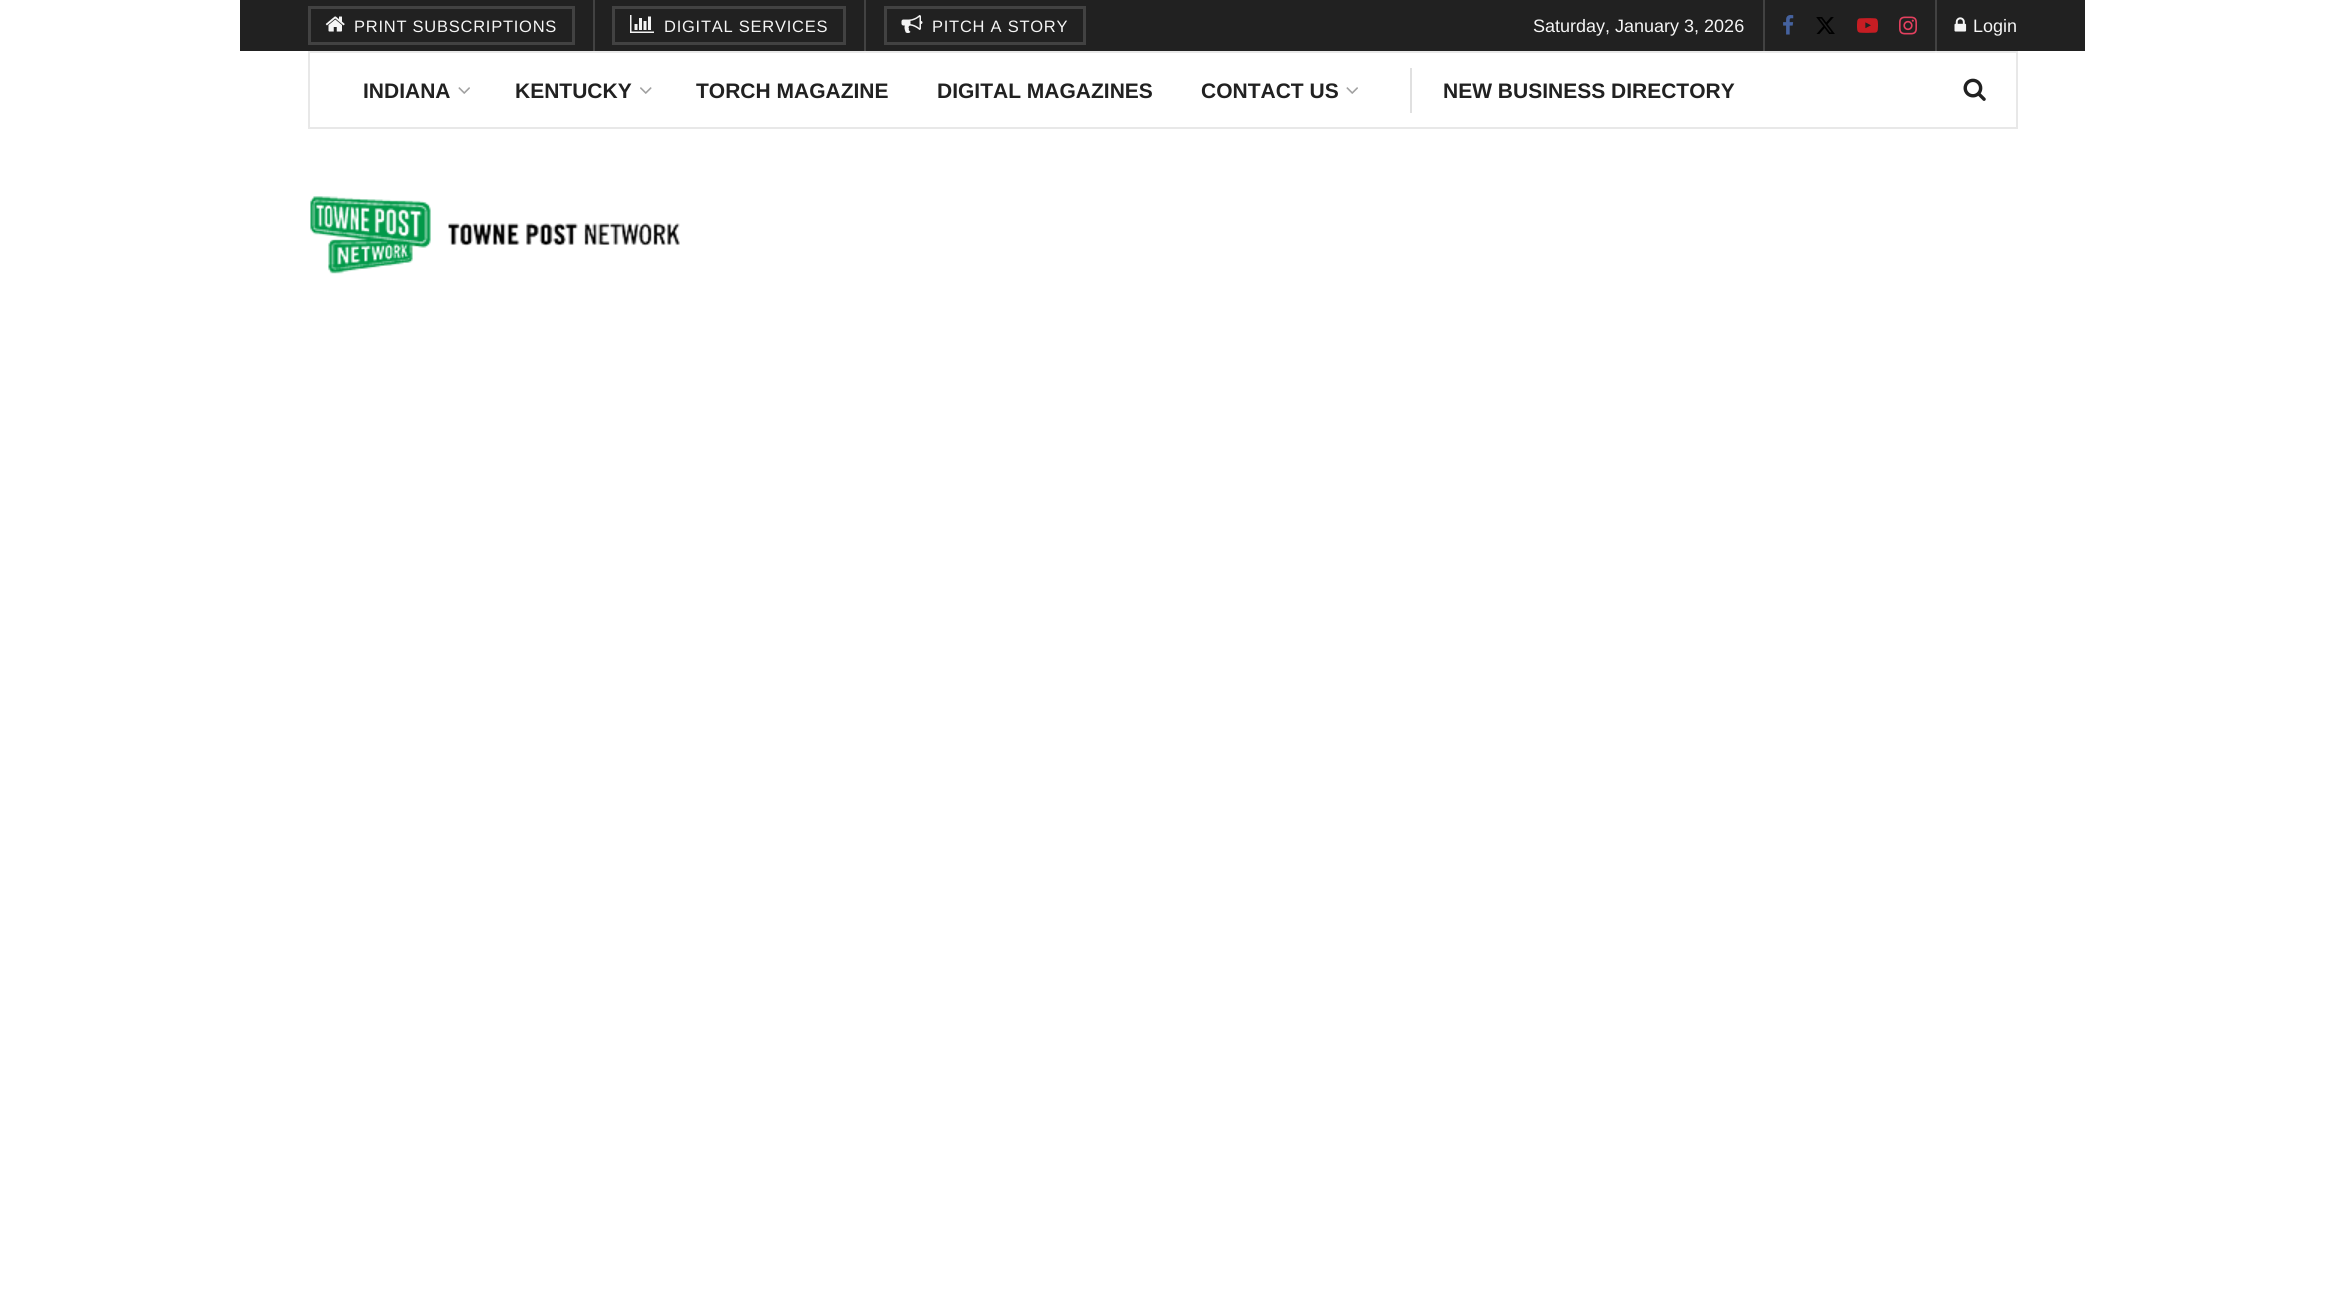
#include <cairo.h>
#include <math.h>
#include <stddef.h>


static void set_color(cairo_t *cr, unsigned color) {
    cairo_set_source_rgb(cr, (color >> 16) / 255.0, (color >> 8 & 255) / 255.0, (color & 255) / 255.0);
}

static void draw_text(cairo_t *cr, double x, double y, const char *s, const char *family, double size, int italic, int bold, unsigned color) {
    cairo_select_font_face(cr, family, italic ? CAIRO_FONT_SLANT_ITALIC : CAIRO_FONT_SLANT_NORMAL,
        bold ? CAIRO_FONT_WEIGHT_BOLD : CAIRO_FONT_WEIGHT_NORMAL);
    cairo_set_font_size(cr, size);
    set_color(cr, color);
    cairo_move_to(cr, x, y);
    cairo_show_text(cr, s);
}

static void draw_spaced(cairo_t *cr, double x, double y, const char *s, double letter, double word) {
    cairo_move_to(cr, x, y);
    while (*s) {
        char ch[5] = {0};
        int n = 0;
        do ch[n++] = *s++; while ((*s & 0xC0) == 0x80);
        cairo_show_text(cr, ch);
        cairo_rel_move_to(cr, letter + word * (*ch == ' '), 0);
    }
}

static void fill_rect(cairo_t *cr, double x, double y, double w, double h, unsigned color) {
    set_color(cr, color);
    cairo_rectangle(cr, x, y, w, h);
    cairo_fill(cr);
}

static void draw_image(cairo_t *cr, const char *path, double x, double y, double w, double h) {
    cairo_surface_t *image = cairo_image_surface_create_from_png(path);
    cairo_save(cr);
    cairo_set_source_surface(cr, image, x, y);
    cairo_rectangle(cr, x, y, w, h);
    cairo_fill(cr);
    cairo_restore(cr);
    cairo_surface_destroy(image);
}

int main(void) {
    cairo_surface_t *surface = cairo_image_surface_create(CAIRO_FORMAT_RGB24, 2325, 1295);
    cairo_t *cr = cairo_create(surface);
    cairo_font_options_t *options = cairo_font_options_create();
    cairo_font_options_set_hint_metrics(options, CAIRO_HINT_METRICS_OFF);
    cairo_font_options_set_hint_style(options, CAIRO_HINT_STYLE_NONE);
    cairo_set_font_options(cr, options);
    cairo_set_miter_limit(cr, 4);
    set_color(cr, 0xFFFFFF);
    cairo_paint(cr);
    fill_rect(cr, 240, 0, 1845, 51, 0x212121);
    fill_rect(cr, 593, 0, 2, 51, 0x424242);
    cairo_rectangle(cr, 309.5, 7.5, 264, 36);
    cairo_set_line_width(cr, 3);
    cairo_stroke(cr);
    draw_image(cr, "assets/img1.png", 325, 16, 20, 16);
    cairo_select_font_face(cr, "Liberation Sans", CAIRO_FONT_SLANT_NORMAL, CAIRO_FONT_WEIGHT_NORMAL);
    cairo_set_font_size(cr, 16.5);
    set_color(cr, 0xF5F5F5);
    draw_spaced(cr, 354, 32, "PRINT SUBSCRIPTIONS", 0.75, 0);
    fill_rect(cr, 864, 0, 2, 51, 0x424242);
    cairo_rectangle(cr, 613.5, 7.5, 231, 36);
    cairo_stroke(cr);
    draw_image(cr, "assets/img2.png", 630, 15, 24, 18);
    set_color(cr, 0xF5F5F5);
    draw_spaced(cr, 664, 32, "DIGITAL SERVICES", 0.75, 0);
    cairo_rectangle(cr, 885.5, 7.5, 199, 36);
    set_color(cr, 0x424242);
    cairo_stroke(cr);
    draw_image(cr, "assets/img3.png", 901, 15, 22, 18);
    set_color(cr, 0xF5F5F5);
    draw_spaced(cr, 932, 32, "PITCH A STORY", 0.75, 0);
    fill_rect(cr, 1763, 0, 2, 51, 0x424242);
    draw_text(cr, 1533, 32, "Saturday, January 3, 2026", "Liberation Sans", 18, 0, 0, 0xF5F5F5);
    cairo_rectangle(cr, 309, 52, 1708, 76);
    set_color(cr, 0xE8E8E8);
    cairo_set_line_width(cr, 2);
    cairo_stroke(cr);
    cairo_set_source_rgba(cr, 1, 1, 1, 0.15);
    cairo_rectangle(cr, 1935, 0, 2, 53);
    cairo_fill(cr);
    draw_image(cr, "assets/img4.png", 1783, 15, 11, 20);
    draw_image(cr, "assets/img5.png", 1816, 17, 19, 17);
    draw_image(cr, "assets/img6.png", 1857, 18, 21, 15);
    draw_image(cr, "assets/img7.png", 1899, 16, 18, 19);
    draw_image(cr, "assets/img8.png", 1954, 17, 13, 15);
    draw_text(cr, 1973, 32, "Login", "Liberation Sans", 18, 0, 0, 0xF5F5F5);
    draw_text(cr, 363, 98, "INDIANA", "Liberation Sans", 21, 0, 1, 0x212121);
    draw_image(cr, "assets/img9.png", 458, 87, 12, 7);
    draw_text(cr, 515, 98, "KENTUCKY", "Liberation Sans", 21, 0, 1, 0x212121);
    draw_image(cr, "assets/img10.png", 640, 87, 12, 7);
    draw_text(cr, 696, 98, "TORCH MAGAZINE", "Liberation Sans", 21, 0, 1, 0x212121);
    draw_text(cr, 937, 98, "DIGITAL MAGAZINES", "Liberation Sans", 21, 0, 1, 0x212121);
    draw_text(cr, 1201, 98, "CONTACT US", "Liberation Sans", 21, 0, 1, 0x212121);
    draw_image(cr, "assets/img9.png", 1346, 87, 12, 7);
    fill_rect(cr, 1410, 68, 2, 45, 0xE0E0E0);
    draw_text(cr, 1443, 98, "NEW BUSINESS DIRECTORY", "Liberation Sans", 21, 0, 1, 0x212121);
    draw_image(cr, "assets/img11.png", 1963, 78, 23, 23);
    draw_image(cr, "assets/img12.png", 310, 196, 370, 78);
    cairo_surface_write_to_png(surface, "output.png");
    cairo_font_options_destroy(options);
    cairo_destroy(cr);
    cairo_surface_destroy(surface);
    return 0;
}
